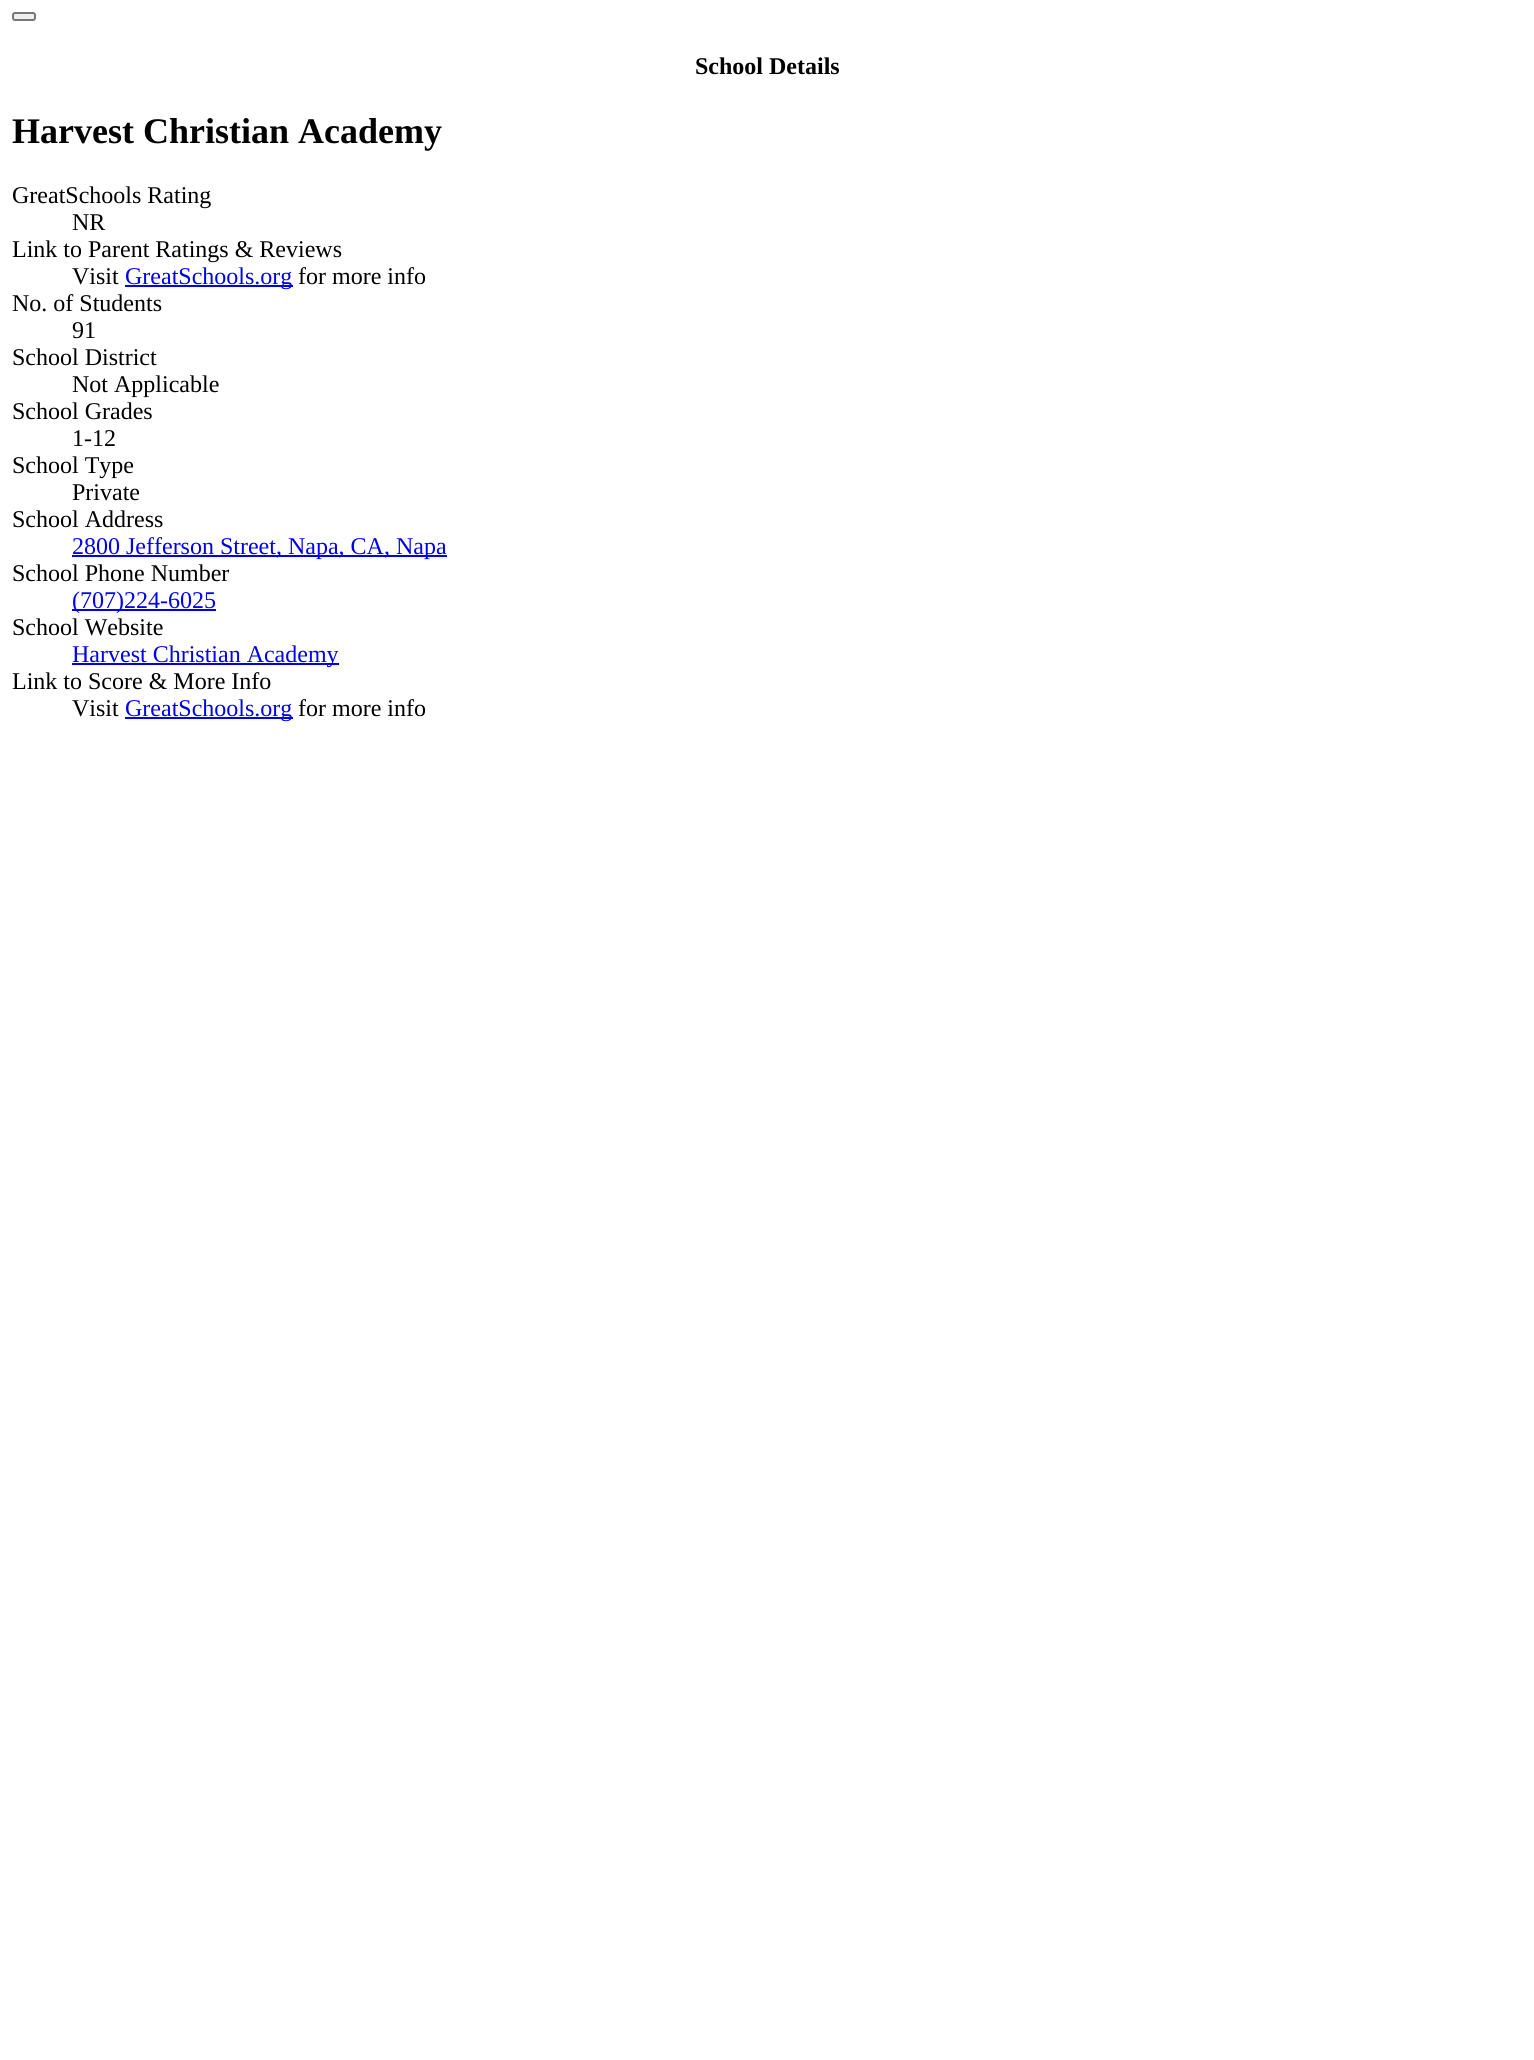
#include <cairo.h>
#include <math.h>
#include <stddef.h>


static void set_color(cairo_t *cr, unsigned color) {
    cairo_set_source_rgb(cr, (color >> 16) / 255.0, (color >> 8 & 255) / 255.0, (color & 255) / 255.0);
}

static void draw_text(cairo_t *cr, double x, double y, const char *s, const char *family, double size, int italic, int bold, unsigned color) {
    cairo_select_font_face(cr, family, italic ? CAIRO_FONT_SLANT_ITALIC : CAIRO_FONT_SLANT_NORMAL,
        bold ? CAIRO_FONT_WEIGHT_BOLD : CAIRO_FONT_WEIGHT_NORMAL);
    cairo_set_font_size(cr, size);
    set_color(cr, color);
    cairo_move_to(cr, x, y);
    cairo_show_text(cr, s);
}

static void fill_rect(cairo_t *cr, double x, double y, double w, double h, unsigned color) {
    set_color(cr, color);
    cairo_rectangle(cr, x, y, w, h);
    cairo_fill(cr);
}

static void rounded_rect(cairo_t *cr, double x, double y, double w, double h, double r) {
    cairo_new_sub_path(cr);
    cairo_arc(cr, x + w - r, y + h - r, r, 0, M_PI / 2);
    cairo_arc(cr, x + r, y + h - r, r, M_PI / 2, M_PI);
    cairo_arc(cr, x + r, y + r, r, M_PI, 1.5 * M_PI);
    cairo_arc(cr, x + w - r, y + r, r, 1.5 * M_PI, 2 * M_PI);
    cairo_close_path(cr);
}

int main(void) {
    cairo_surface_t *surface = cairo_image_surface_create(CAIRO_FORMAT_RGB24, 1534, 2060);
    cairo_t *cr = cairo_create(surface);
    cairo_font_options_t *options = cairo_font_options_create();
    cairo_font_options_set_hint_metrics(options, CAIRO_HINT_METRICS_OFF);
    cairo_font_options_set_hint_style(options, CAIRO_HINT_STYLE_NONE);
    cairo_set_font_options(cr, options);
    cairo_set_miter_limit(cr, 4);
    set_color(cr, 0xFFFFFF);
    cairo_paint(cr);
    set_color(cr, 0xEFEFEF);
    rounded_rect(cr, 13, 13, 22, 7, 2);
    cairo_fill_preserve(cr);
    set_color(cr, 0x767676);
    cairo_stroke(cr);
    draw_text(cr, 695, 74, "School Details", "Liberation Serif", 24, 0, 1, 0x000000);
    draw_text(cr, 12, 143, "Harvest Christian Academy", "Liberation Serif", 36, 0, 1, 0x000000);
    draw_text(cr, 12, 203, "GreatSchools Rating", "Liberation Serif", 24, 0, 0, 0x000000);
    draw_text(cr, 72, 230, "NR", "Liberation Serif", 24, 0, 0, 0x000000);
    draw_text(cr, 12, 257, "Link to Parent Ratings & Reviews", "Liberation Serif", 24, 0, 0, 0x000000);
    draw_text(cr, 72, 284, "Visit", "Liberation Serif", 24, 0, 0, 0x000000);
    fill_rect(cr, 125, 285, 168, 2, 0x0000EE);
    draw_text(cr, 125, 284, "GreatSchools.org", "Liberation Serif", 24, 0, 0, 0x0000EE);
    draw_text(cr, 298, 284, "for more info", "Liberation Serif", 24, 0, 0, 0x000000);
    draw_text(cr, 12, 311, "No. of Students", "Liberation Serif", 24, 0, 0, 0x000000);
    draw_text(cr, 72, 338, "91", "Liberation Serif", 24, 0, 0, 0x000000);
    draw_text(cr, 12, 365, "School District", "Liberation Serif", 24, 0, 0, 0x000000);
    draw_text(cr, 72, 392, "Not Applicable", "Liberation Serif", 24, 0, 0, 0x000000);
    draw_text(cr, 12, 419, "School Grades", "Liberation Serif", 24, 0, 0, 0x000000);
    draw_text(cr, 72, 446, "1-12", "Liberation Serif", 24, 0, 0, 0x000000);
    draw_text(cr, 12, 473, "School Type", "Liberation Serif", 24, 0, 0, 0x000000);
    draw_text(cr, 72, 500, "Private", "Liberation Serif", 24, 0, 0, 0x000000);
    draw_text(cr, 12, 527, "School Address", "Liberation Serif", 24, 0, 0, 0x000000);
    fill_rect(cr, 72, 555, 375, 2, 0x0000EE);
    draw_text(cr, 72, 554, "2800 Jefferson Street, Napa, CA, Napa", "Liberation Serif", 24, 0, 0, 0x0000EE);
    draw_text(cr, 12, 581, "School Phone Number", "Liberation Serif", 24, 0, 0, 0x000000);
    fill_rect(cr, 72, 609, 144, 2, 0x0000EE);
    draw_text(cr, 72, 608, "(707)224-6025", "Liberation Serif", 24, 0, 0, 0x0000EE);
    draw_text(cr, 12, 635, "School Website", "Liberation Serif", 24, 0, 0, 0x000000);
    fill_rect(cr, 72, 663, 267, 2, 0x0000EE);
    draw_text(cr, 72, 662, "Harvest Christian Academy", "Liberation Serif", 24, 0, 0, 0x0000EE);
    draw_text(cr, 12, 689, "Link to Score & More Info", "Liberation Serif", 24, 0, 0, 0x000000);
    draw_text(cr, 72, 716, "Visit", "Liberation Serif", 24, 0, 0, 0x000000);
    fill_rect(cr, 125, 717, 168, 2, 0x0000EE);
    draw_text(cr, 125, 716, "GreatSchools.org", "Liberation Serif", 24, 0, 0, 0x0000EE);
    draw_text(cr, 298, 716, "for more info", "Liberation Serif", 24, 0, 0, 0x000000);
    cairo_surface_write_to_png(surface, "output.png");
    cairo_font_options_destroy(options);
    cairo_destroy(cr);
    cairo_surface_destroy(surface);
    return 0;
}
